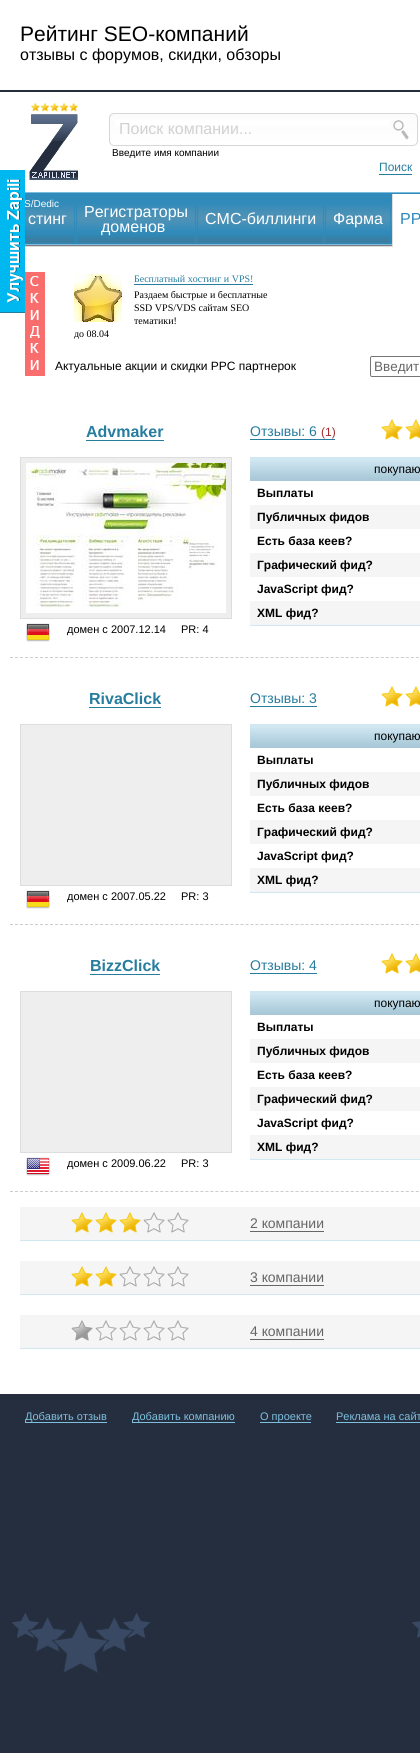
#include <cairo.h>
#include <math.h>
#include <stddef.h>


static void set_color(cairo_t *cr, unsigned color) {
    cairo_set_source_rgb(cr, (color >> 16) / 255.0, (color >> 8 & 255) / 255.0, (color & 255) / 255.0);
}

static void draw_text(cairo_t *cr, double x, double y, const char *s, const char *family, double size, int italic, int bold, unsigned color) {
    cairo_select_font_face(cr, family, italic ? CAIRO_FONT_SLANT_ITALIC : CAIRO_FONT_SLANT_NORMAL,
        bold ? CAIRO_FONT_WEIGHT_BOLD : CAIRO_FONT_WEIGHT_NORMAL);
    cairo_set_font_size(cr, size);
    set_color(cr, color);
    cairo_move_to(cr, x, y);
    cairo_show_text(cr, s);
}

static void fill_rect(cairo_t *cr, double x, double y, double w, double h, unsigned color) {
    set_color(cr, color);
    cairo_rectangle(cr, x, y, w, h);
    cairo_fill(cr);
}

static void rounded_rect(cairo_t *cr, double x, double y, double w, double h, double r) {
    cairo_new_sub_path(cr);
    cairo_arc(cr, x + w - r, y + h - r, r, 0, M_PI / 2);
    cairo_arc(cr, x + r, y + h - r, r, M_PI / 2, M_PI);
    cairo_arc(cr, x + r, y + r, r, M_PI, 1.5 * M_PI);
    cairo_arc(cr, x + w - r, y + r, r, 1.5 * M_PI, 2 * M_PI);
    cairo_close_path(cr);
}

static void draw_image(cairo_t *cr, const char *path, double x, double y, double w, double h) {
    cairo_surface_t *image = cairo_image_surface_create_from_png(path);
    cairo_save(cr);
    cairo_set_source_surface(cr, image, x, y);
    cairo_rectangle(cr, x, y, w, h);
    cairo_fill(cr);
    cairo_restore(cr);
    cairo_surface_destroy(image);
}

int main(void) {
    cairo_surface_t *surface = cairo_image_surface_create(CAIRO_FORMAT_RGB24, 420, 1753);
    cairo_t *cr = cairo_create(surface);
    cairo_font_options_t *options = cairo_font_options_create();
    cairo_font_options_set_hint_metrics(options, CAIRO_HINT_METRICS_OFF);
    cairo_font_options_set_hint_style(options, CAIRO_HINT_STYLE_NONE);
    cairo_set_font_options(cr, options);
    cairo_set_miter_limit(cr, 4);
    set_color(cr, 0x242E3E);
    cairo_paint(cr);
    draw_image(cr, "assets/img1.png", 12, 1459, 408, 214);
    fill_rect(cr, 0, 0, 420, 1394, 0xFFFFFF);
    fill_rect(cr, 25, 193, 395, 11, 0x308ABA);
    draw_image(cr, "assets/img5.png", 25, 204, 367, 40);
    draw_text(cr, 24, 207, "S/Dedic", "Liberation Sans", 10, 0, 0, 0xFFFFFF);
    fill_rect(cr, 0, 170, 25, 142, 0x00B8F0);
    fill_rect(cr, 0, 312, 25, 1, 0x267D9E);
    draw_image(cr, "assets/img2.png", 7, 179, 16, 124);
    draw_text(cr, 20, 41, "Рейтинг SEO-компаний", "Liberation Sans", 21, 0, 0, 0x000000);
    draw_text(cr, 20, 60, "отзывы с форумов, скидки, обзоры", "Liberation Sans", 16, 0, 0, 0x000000);
    draw_image(cr, "assets/img3.png", 29, 103, 49, 77);
    fill_rect(cr, 0, 90, 420, 2, 0x242E3E);
    draw_image(cr, "assets/img4.png", 109, 113, 309, 33);
    fill_rect(cr, 115, 120, 274, 6, 0xFFFFFF);
    draw_text(cr, 119, 134, "Поиск компании...", "Liberation Sans", 16, 0, 0, 0xD1D1D1);
    draw_text(cr, 112, 156, "Введите имя компании", "Liberation Sans", 10, 0, 0, 0x000000);
    fill_rect(cr, 379, 174, 33, 1, 0x267D9E);
    draw_text(cr, 379, 171, "Поиск", "Liberation Sans", 12, 0, 0, 0x267D9E);
    fill_rect(cr, 25, 192, 395, 1, 0x7ABCE0);
    fill_rect(cr, 25, 244, 367, 1, 0x7ABCE0);
    fill_rect(cr, 74, 204, 1, 40, 0x308ABA);
    draw_text(cr, 28, 224, "стинг", "Liberation Sans", 16, 0, 0, 0xFFFFFF);
    fill_rect(cr, 195, 204, 1, 40, 0x308ABA);
    fill_rect(cr, 76, 204, 1, 40, 0x308ABA);
    draw_text(cr, 84, 217, "Регистраторы", "Liberation Sans", 16, 0, 0, 0xFFFFFF);
    draw_text(cr, 101, 232, "доменов", "Liberation Sans", 16, 0, 0, 0xFFFFFF);
    fill_rect(cr, 323, 204, 1, 40, 0x308ABA);
    fill_rect(cr, 197, 204, 1, 40, 0x308ABA);
    draw_text(cr, 205, 224, "СМС-биллинги", "Liberation Sans", 16, 0, 0, 0xFFFFFF);
    fill_rect(cr, 390, 204, 1, 40, 0x308ABA);
    fill_rect(cr, 325, 204, 1, 40, 0x308ABA);
    draw_text(cr, 333, 224, "Фарма", "Liberation Sans", 16, 0, 0, 0xFFFFFF);
    fill_rect(cr, 393, 194, 27, 10, 0xFFFFFF);
    fill_rect(cr, 392, 194, 1, 53, 0xDDDDDD);
    draw_text(cr, 400, 224, "PP", "Liberation Sans", 16, 0, 0, 0x308ABA);
    fill_rect(cr, 25, 246, 367, 1, 0xDADADA);
    fill_rect(cr, 25, 245, 367, 1, 0x7E7E7E);
    draw_image(cr, "assets/img6.png", 25, 272, 20, 104);
    draw_image(cr, "assets/img7.png", 74, 274, 48, 48);
    draw_text(cr, 134, 282, "Бесплатный хостинг и VPS!", "Liberation Serif", 10, 0, 0, 0x267D9E);
    fill_rect(cr, 134, 284, 119, 1, 0x267D9E);
    draw_text(cr, 134, 298, "Раздаем быстрые и бесплатные", "Liberation Serif", 10, 0, 0, 0x000000);
    draw_text(cr, 134, 311, "SSD VPS/VDS сайтам SEO", "Liberation Serif", 10, 0, 0, 0x000000);
    draw_text(cr, 134, 324, "тематики!", "Liberation Serif", 10, 0, 0, 0x000000);
    draw_text(cr, 74, 337, "до 08.04", "Liberation Serif", 10, 0, 0, 0x000000);
    draw_text(cr, 55, 370, "Актуальные акции и скидки PPC партнерок", "Liberation Sans", 12, 0, 0, 0x000000);
    rounded_rect(cr, 370.5, 356.5, 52, 20, 1.5);
    set_color(cr, 0x767676);
    cairo_set_line_width(cr, 1);
    cairo_stroke(cr);
    draw_text(cr, 374, 371, "Введит", "Liberation Sans", 13.5, 0, 0, 0x666666);
    cairo_new_path(cr);
    cairo_move_to(cr, 10, 657.5);
    cairo_line_to(cr, 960, 657.5);
    set_color(cr, 0xCCCCCC);
    cairo_set_dash(cr, (double[]){3, 2.01}, 2, 0);
    cairo_stroke(cr);
    draw_text(cr, 86, 437, "Advmaker", "Liberation Sans", 16, 0, 1, 0x267D9E);
    fill_rect(cr, 86, 440, 78, 1, 0x267D9E);
    draw_text(cr, 250, 436, "Отзывы: 6", "Liberation Sans", 14, 0, 0, 0x267D9E);
    draw_text(cr, 321, 436, "(1)", "Liberation Sans", 12, 0, 0, 0xA62A2A);
    fill_rect(cr, 250, 439, 85, 1, 0x267D9E);
    draw_image(cr, "assets/img8.png", 381, 419, 22, 21);
    draw_image(cr, "assets/img9.png", 405, 419, 15, 21);
    fill_rect(cr, 250, 625, 170, 1, 0xD1E8F3);
    fill_rect(cr, 250, 457, 170, 4, 0xD1E8F3);
    draw_image(cr, "assets/img10.png", 250, 461, 170, 20);
    draw_text(cr, 374, 473, "покупаю", "Liberation Sans", 12, 0, 0, 0x000000);
    draw_text(cr, 257, 497, "Выплаты", "Liberation Sans", 12, 0, 1, 0x000000);
    fill_rect(cr, 250, 505, 170, 24, 0xF5F5F5);
    draw_text(cr, 257, 521, "Публичных фидов", "Liberation Sans", 12, 0, 1, 0x000000);
    draw_text(cr, 257, 545, "Есть база кеев?", "Liberation Sans", 12, 0, 1, 0x000000);
    fill_rect(cr, 250, 553, 170, 24, 0xF5F5F5);
    draw_text(cr, 257, 569, "Графический фид?", "Liberation Sans", 12, 0, 1, 0x000000);
    draw_text(cr, 257, 593, "JavaScript фид?", "Liberation Sans", 12, 0, 1, 0x000000);
    fill_rect(cr, 250, 601, 170, 24, 0xF5F5F5);
    draw_text(cr, 257, 617, "XML фид?", "Liberation Sans", 12, 0, 1, 0x000000);
    set_color(cr, 0xEEEEEE);
    cairo_rectangle(cr, 20.5, 457.5, 211, 161);
    cairo_fill_preserve(cr);
    set_color(cr, 0xDDDDDD);
    cairo_set_dash(cr, NULL, 0, 0);
    cairo_stroke(cr);
    draw_image(cr, "assets/img11.png", 26, 463, 200, 150);
    draw_image(cr, "assets/img12.png", 26, 623, 24, 19);
    draw_text(cr, 67, 633, "домен с 2007.12.14", "Liberation Sans", 11, 0, 0, 0x000000);
    draw_text(cr, 181, 633, "PR: 4", "Liberation Sans", 11, 0, 0, 0x000000);
    cairo_new_path(cr);
    cairo_move_to(cr, 10, 924.5);
    cairo_line_to(cr, 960, 924.5);
    set_color(cr, 0xCCCCCC);
    cairo_set_dash(cr, (double[]){3, 2.01}, 2, 0);
    cairo_stroke(cr);
    draw_text(cr, 89, 704, "RivaClick", "Liberation Sans", 16, 0, 1, 0x267D9E);
    fill_rect(cr, 89, 707, 72, 1, 0x267D9E);
    draw_text(cr, 250, 703, "Отзывы: 3", "Liberation Sans", 14, 0, 0, 0x267D9E);
    fill_rect(cr, 250, 706, 67, 1, 0x267D9E);
    draw_image(cr, "assets/img8.png", 381, 686, 22, 21);
    draw_image(cr, "assets/img9.png", 405, 686, 15, 21);
    fill_rect(cr, 250, 892, 170, 1, 0xD1E8F3);
    fill_rect(cr, 250, 724, 170, 4, 0xD1E8F3);
    draw_image(cr, "assets/img10.png", 250, 728, 170, 20);
    draw_text(cr, 374, 740, "покупаю", "Liberation Sans", 12, 0, 0, 0x000000);
    draw_text(cr, 257, 764, "Выплаты", "Liberation Sans", 12, 0, 1, 0x000000);
    fill_rect(cr, 250, 772, 170, 24, 0xF5F5F5);
    draw_text(cr, 257, 788, "Публичных фидов", "Liberation Sans", 12, 0, 1, 0x000000);
    draw_text(cr, 257, 812, "Есть база кеев?", "Liberation Sans", 12, 0, 1, 0x000000);
    fill_rect(cr, 250, 820, 170, 24, 0xF5F5F5);
    draw_text(cr, 257, 836, "Графический фид?", "Liberation Sans", 12, 0, 1, 0x000000);
    draw_text(cr, 257, 860, "JavaScript фид?", "Liberation Sans", 12, 0, 1, 0x000000);
    fill_rect(cr, 250, 868, 170, 24, 0xF5F5F5);
    draw_text(cr, 257, 884, "XML фид?", "Liberation Sans", 12, 0, 1, 0x000000);
    set_color(cr, 0xEEEEEE);
    cairo_rectangle(cr, 20.5, 724.5, 211, 161);
    cairo_fill_preserve(cr);
    set_color(cr, 0xDDDDDD);
    cairo_set_dash(cr, NULL, 0, 0);
    cairo_stroke(cr);
    draw_image(cr, "assets/img12.png", 26, 890, 24, 19);
    draw_text(cr, 67, 900, "домен с 2007.05.22", "Liberation Sans", 11, 0, 0, 0x000000);
    draw_text(cr, 181, 900, "PR: 3", "Liberation Sans", 11, 0, 0, 0x000000);
    cairo_new_path(cr);
    cairo_move_to(cr, 10, 1191.5);
    cairo_line_to(cr, 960, 1191.5);
    set_color(cr, 0xCCCCCC);
    cairo_set_dash(cr, (double[]){3, 2.01}, 2, 0);
    cairo_stroke(cr);
    draw_text(cr, 90, 971, "BizzClick", "Liberation Sans", 16, 0, 1, 0x267D9E);
    fill_rect(cr, 90, 974, 70, 1, 0x267D9E);
    draw_text(cr, 250, 970, "Отзывы: 4", "Liberation Sans", 14, 0, 0, 0x267D9E);
    fill_rect(cr, 250, 973, 67, 1, 0x267D9E);
    draw_image(cr, "assets/img8.png", 381, 953, 22, 21);
    draw_image(cr, "assets/img9.png", 405, 953, 15, 21);
    fill_rect(cr, 250, 1159, 170, 1, 0xD1E8F3);
    fill_rect(cr, 250, 991, 170, 4, 0xD1E8F3);
    draw_image(cr, "assets/img10.png", 250, 995, 170, 20);
    draw_text(cr, 374, 1007, "покупаю", "Liberation Sans", 12, 0, 0, 0x000000);
    draw_text(cr, 257, 1031, "Выплаты", "Liberation Sans", 12, 0, 1, 0x000000);
    fill_rect(cr, 250, 1039, 170, 24, 0xF5F5F5);
    draw_text(cr, 257, 1055, "Публичных фидов", "Liberation Sans", 12, 0, 1, 0x000000);
    draw_text(cr, 257, 1079, "Есть база кеев?", "Liberation Sans", 12, 0, 1, 0x000000);
    fill_rect(cr, 250, 1087, 170, 24, 0xF5F5F5);
    draw_text(cr, 257, 1103, "Графический фид?", "Liberation Sans", 12, 0, 1, 0x000000);
    draw_text(cr, 257, 1127, "JavaScript фид?", "Liberation Sans", 12, 0, 1, 0x000000);
    fill_rect(cr, 250, 1135, 170, 24, 0xF5F5F5);
    draw_text(cr, 257, 1151, "XML фид?", "Liberation Sans", 12, 0, 1, 0x000000);
    set_color(cr, 0xEEEEEE);
    cairo_rectangle(cr, 20.5, 991.5, 211, 161);
    cairo_fill_preserve(cr);
    set_color(cr, 0xDDDDDD);
    cairo_set_dash(cr, NULL, 0, 0);
    cairo_stroke(cr);
    draw_image(cr, "assets/img13.png", 26, 1157, 24, 19);
    draw_text(cr, 67, 1167, "домен с 2009.06.22", "Liberation Sans", 11, 0, 0, 0x000000);
    draw_text(cr, 181, 1167, "PR: 3", "Liberation Sans", 11, 0, 0, 0x000000);
    fill_rect(cr, 20, 1207, 400, 33, 0xF5F5F5);
    fill_rect(cr, 20, 1240, 400, 1, 0xD1E8F3);
    draw_image(cr, "assets/img14.png", 71, 1212, 22, 21);
    draw_image(cr, "assets/img14.png", 95, 1212, 22, 21);
    draw_image(cr, "assets/img14.png", 119, 1212, 22, 21);
    draw_image(cr, "assets/img15.png", 143, 1212, 22, 21);
    draw_image(cr, "assets/img15.png", 167, 1212, 22, 21);
    draw_text(cr, 250, 1228, "2 компании", "Liberation Sans", 14, 0, 0, 0x666666);
    fill_rect(cr, 250, 1231, 74, 1, 0x666666);
    fill_rect(cr, 20, 1261, 400, 33, 0xF5F5F5);
    fill_rect(cr, 20, 1294, 400, 1, 0xD1E8F3);
    draw_image(cr, "assets/img14.png", 71, 1266, 22, 21);
    draw_image(cr, "assets/img14.png", 95, 1266, 22, 21);
    draw_image(cr, "assets/img15.png", 119, 1266, 22, 21);
    draw_image(cr, "assets/img15.png", 143, 1266, 22, 21);
    draw_image(cr, "assets/img15.png", 167, 1266, 22, 21);
    draw_text(cr, 250, 1282, "3 компании", "Liberation Sans", 14, 0, 0, 0x666666);
    fill_rect(cr, 250, 1285, 74, 1, 0x666666);
    fill_rect(cr, 20, 1315, 400, 33, 0xF5F5F5);
    fill_rect(cr, 20, 1348, 400, 1, 0xD1E8F3);
    draw_image(cr, "assets/img16.png", 71, 1320, 22, 21);
    draw_image(cr, "assets/img15.png", 95, 1320, 22, 21);
    draw_image(cr, "assets/img15.png", 119, 1320, 22, 21);
    draw_image(cr, "assets/img15.png", 143, 1320, 22, 21);
    draw_image(cr, "assets/img15.png", 167, 1320, 22, 21);
    draw_text(cr, 250, 1336, "4 компании", "Liberation Sans", 14, 0, 0, 0x666666);
    fill_rect(cr, 250, 1339, 74, 1, 0x666666);
    fill_rect(cr, 25, 1422, 82, 1, 0x7EBFDE);
    draw_text(cr, 25, 1420, "Добавить отзыв", "Liberation Sans", 11, 0, 0, 0x7EBFDE);
    fill_rect(cr, 132, 1422, 103, 1, 0x7EBFDE);
    draw_text(cr, 132, 1420, "Добавить компанию", "Liberation Sans", 11, 0, 0, 0x7EBFDE);
    fill_rect(cr, 260, 1422, 51, 1, 0x7EBFDE);
    draw_text(cr, 260, 1420, "О проекте", "Liberation Sans", 11, 0, 0, 0x7EBFDE);
    draw_text(cr, 336, 1420, "Реклама на сайт", "Liberation Sans", 11, 0, 0, 0x7EBFDE);
    fill_rect(cr, 336, 1422, 84, 1, 0x7EBFDE);
    cairo_surface_write_to_png(surface, "output.png");
    cairo_font_options_destroy(options);
    cairo_destroy(cr);
    cairo_surface_destroy(surface);
    return 0;
}
